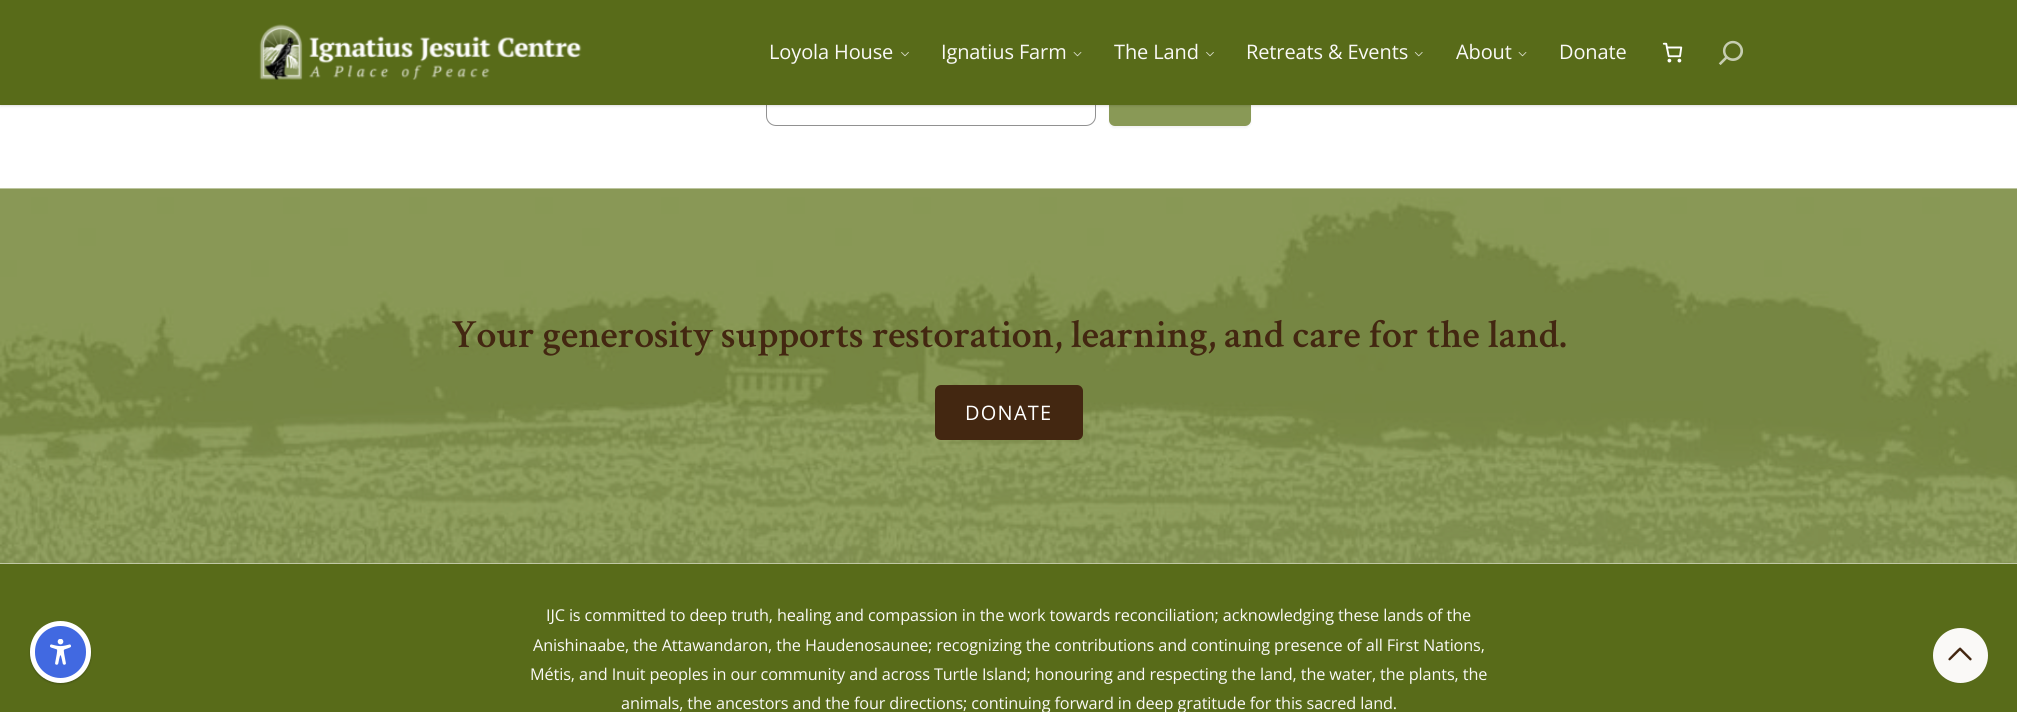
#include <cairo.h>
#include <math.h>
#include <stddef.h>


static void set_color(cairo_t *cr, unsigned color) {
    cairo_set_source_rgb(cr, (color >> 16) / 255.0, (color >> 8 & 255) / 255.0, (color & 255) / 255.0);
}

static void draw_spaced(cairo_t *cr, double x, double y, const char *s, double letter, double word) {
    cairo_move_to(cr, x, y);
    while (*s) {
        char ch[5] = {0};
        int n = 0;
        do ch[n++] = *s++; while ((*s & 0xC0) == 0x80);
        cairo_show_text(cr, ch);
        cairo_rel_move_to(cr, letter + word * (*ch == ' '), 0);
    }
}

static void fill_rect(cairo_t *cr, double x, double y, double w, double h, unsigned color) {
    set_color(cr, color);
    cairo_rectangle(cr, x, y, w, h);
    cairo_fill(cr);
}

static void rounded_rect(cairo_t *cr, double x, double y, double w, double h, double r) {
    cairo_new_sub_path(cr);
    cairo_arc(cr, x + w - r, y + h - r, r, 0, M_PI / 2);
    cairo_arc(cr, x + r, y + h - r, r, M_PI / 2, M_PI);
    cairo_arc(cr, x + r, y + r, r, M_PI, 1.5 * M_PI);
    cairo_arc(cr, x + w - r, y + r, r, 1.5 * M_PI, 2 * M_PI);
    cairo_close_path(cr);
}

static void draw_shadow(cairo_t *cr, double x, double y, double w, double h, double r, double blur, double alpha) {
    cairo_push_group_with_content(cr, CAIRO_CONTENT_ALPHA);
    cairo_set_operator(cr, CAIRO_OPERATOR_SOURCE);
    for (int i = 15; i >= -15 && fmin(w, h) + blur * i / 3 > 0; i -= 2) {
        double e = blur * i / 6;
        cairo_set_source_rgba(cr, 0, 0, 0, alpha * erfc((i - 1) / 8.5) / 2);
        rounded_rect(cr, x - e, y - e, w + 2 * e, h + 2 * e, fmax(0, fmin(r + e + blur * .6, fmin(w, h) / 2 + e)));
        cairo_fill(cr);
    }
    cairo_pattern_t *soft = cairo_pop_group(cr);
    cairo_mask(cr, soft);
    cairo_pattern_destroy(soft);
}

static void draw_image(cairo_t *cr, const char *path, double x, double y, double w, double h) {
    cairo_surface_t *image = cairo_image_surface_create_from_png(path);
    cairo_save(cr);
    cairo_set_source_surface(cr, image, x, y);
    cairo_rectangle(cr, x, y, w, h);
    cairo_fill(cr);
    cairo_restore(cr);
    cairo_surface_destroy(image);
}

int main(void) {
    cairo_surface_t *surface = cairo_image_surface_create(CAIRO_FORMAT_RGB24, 2017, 712);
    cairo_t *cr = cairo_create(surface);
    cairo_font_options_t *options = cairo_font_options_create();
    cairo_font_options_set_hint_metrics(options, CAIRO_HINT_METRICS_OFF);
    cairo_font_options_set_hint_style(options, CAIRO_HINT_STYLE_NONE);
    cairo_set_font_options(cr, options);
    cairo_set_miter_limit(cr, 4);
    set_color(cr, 0xFFFFFF);
    cairo_paint(cr);
    fill_rect(cr, 0, 563, 2017, 1, 0xC4CCAB);
    fill_rect(cr, 0, 564, 2017, 148, 0x586B19);
    set_color(cr, 0x000000);
    draw_shadow(cr, 30, 623, 61, 61, 30.5, 1, 0.24);
    set_color(cr, 0x4169E1);
    rounded_rect(cr, 32.5, 623.5, 56, 57, 28);
    cairo_fill_preserve(cr);
    set_color(cr, 0xFFFFFF);
    cairo_set_line_width(cr, 5);
    cairo_stroke(cr);
    draw_image(cr, "assets/img1.png", 50, 639, 21, 26);
    rounded_rect(cr, 766.5, 71.5, 329, 54, 9.5);
    set_color(cr, 0x919191);
    cairo_set_line_width(cr, 1);
    cairo_stroke(cr);
    set_color(cr, 0x000000);
    draw_shadow(cr, 1109, 73, 142, 55, 6, 1, 0.05);
    set_color(cr, 0x899956);
    rounded_rect(cr, 1109, 71, 142, 55, 6);
    cairo_fill(cr);
    set_color(cr, 0x000000);
    draw_shadow(cr, 1, 3, 2015, 102, 0, 1, 0.1);
    draw_shadow(cr, 0, 1, 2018, 105, 0, 2, 0.1);
    fill_rect(cr, 0, 0, 2017, 105, 0x586B19);
    draw_image(cr, "assets/img2.png", 259, 24, 323, 56);
    cairo_select_font_face(cr, "Open Sans", CAIRO_FONT_SLANT_NORMAL, CAIRO_FONT_WEIGHT_NORMAL);
    cairo_set_font_size(cr, 20);
    set_color(cr, 0xFAF9F7);
    draw_spaced(cr, 769, 59, "Loyola House", -0.12, 0);
    draw_image(cr, "assets/img3.png", 901, 52, 8, 5);
    draw_spaced(cr, 941, 59, "Ignatius Farm", -0.12, 0);
    draw_image(cr, "assets/img4.png", 1073, 52, 9, 5);
    draw_spaced(cr, 1114, 59, "The Land", -0.12, 0);
    draw_image(cr, "assets/img3.png", 1206, 52, 8, 5);
    draw_spaced(cr, 1246, 59, "Retreats & Events", -0.12, 0);
    draw_image(cr, "assets/img5.png", 1414, 52, 9, 5);
    draw_spaced(cr, 1456, 59, "About", -0.12, 0);
    draw_image(cr, "assets/img4.png", 1518, 52, 9, 5);
    draw_spaced(cr, 1559, 59, "Donate", -0.12, 0);
    draw_image(cr, "assets/img6.png", 1662, 42, 21, 21);
    draw_image(cr, "assets/img7.png", 1718, 40, 25, 25);
    draw_image(cr, "assets/img8.png", 0, 188, 2017, 376);
    cairo_select_font_face(cr, "Crimson Text SemiBold", CAIRO_FONT_SLANT_NORMAL, CAIRO_FONT_WEIGHT_NORMAL);
    cairo_set_font_size(cr, 40);
    set_color(cr, 0x432711);
    draw_spaced(cr, 451, 347, "Your generosity supports restoration, learning, and care for the land.", -0.12, 0);
    rounded_rect(cr, 935, 385, 148, 55, 6);
    cairo_fill(cr);
    cairo_select_font_face(cr, "Open Sans", CAIRO_FONT_SLANT_NORMAL, CAIRO_FONT_WEIGHT_NORMAL);
    cairo_set_font_size(cr, 20);
    set_color(cr, 0xFFFFFF);
    draw_spaced(cr, 965, 420, "DONATE", 1.25, 0);
    cairo_set_font_size(cr, 16.25);
    set_color(cr, 0xFAF9F7);
    draw_spaced(cr, 546, 621, "IJC is committed to deep truth, healing and compassion in the work towards reconciliation; acknowledging these lands of the", -0.12, 0);
    draw_spaced(cr, 533, 651, "Anishinaabe, the Attawandaron, the Haudenosaunee; recognizing the contributions and continuing presence of all First Nations,", -0.12, 0);
    draw_spaced(cr, 530, 680, "Métis, and Inuit peoples in our community and across Turtle Island; honouring and respecting the land, the water, the plants, the", -0.12, 0);
    draw_spaced(cr, 621, 709, "animals, the ancestors and the four directions; continuing forward in deep gratitude for this sacred land.", -0.12, 0);
    set_color(cr, 0x000000);
    draw_shadow(cr, 1934, 630, 52, 53, 26, 1, 0.1);
    set_color(cr, 0xFAF9F7);
    cairo_arc(cr, 1960.5, 655.5, 27.5, 0, 2 * M_PI);
    cairo_fill(cr);
    draw_image(cr, "assets/img9.png", 1948, 647, 24, 14);
    cairo_surface_write_to_png(surface, "output.png");
    cairo_font_options_destroy(options);
    cairo_destroy(cr);
    cairo_surface_destroy(surface);
    return 0;
}
